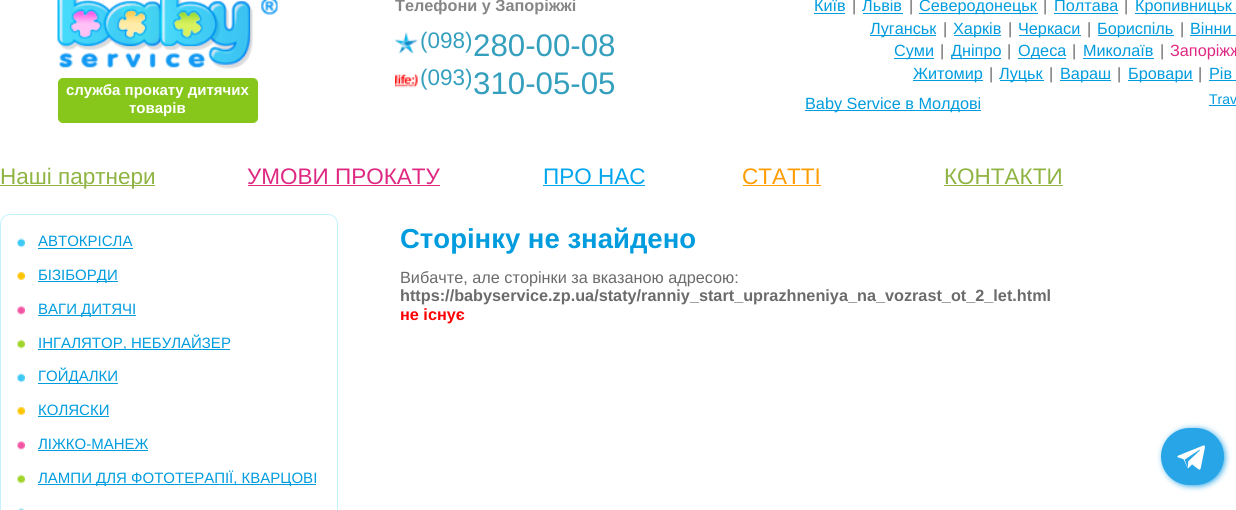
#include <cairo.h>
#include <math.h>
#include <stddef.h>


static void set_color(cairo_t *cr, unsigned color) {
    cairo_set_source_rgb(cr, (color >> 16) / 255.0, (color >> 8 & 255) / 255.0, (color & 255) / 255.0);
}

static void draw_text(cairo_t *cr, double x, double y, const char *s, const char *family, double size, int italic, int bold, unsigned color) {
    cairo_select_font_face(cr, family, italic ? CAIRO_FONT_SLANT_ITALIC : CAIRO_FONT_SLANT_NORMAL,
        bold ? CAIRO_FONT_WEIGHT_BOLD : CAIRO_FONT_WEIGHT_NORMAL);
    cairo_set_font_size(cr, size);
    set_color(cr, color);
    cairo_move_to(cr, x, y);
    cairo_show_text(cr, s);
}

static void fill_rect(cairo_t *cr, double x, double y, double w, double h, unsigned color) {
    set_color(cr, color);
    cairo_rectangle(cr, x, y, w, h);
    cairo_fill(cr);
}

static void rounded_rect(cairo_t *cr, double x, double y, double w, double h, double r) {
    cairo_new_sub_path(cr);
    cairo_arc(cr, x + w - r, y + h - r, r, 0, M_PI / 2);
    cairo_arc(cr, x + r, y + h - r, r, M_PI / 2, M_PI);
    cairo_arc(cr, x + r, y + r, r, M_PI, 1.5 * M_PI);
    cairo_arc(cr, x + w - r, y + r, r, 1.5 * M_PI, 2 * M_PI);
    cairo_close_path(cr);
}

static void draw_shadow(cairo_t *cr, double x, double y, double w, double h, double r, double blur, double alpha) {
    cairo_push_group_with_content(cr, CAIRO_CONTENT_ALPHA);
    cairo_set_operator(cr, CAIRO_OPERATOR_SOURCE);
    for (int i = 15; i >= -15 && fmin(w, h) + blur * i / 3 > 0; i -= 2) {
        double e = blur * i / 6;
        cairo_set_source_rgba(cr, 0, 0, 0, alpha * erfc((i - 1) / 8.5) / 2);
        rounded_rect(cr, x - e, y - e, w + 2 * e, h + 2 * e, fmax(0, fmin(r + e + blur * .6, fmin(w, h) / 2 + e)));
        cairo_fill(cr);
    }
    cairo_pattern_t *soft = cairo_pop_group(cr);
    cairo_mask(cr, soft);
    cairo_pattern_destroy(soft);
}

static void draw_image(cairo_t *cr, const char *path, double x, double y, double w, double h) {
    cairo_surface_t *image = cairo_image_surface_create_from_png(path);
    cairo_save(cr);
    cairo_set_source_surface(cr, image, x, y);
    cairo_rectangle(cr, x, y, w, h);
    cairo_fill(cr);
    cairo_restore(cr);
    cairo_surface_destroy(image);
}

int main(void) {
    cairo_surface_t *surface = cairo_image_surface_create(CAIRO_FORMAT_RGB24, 1236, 510);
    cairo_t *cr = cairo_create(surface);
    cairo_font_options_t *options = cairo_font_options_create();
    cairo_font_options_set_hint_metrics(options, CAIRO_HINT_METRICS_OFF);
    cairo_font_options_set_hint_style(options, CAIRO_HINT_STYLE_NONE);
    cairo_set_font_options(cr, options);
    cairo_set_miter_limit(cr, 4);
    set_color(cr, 0xFFFFFF);
    cairo_paint(cr);
    draw_image(cr, "assets/img1.png", 57, 0, 221, 69);
    set_color(cr, 0x87C71B);
    rounded_rect(cr, 58.5, 78.5, 199, 44, 4.5);
    cairo_fill_preserve(cr);
    cairo_set_line_width(cr, 1);
    cairo_stroke(cr);
    draw_text(cr, 66, 95, "служба прокату дитячих", "Liberation Sans", 15, 0, 1, 0xFFFFFF);
    draw_text(cr, 129, 113, "товарів", "Liberation Sans", 15, 0, 1, 0xFFFFFF);
    draw_text(cr, 395, 11, "Телефони у Запоріжжі", "Liberation Sans", 16.25, 0, 1, 0x868686);
    draw_image(cr, "assets/img2.png", 395, 32, 23, 22);
    draw_text(cr, 420, 48, "(098)", "Liberation Sans", 22.5, 0, 0, 0x359FBE);
    draw_text(cr, 473, 56, "280-00-08", "Liberation Sans", 31.25, 0, 0, 0x359FBE);
    draw_image(cr, "assets/img3.png", 395, 73, 23, 15);
    draw_text(cr, 420, 85, "(093)", "Liberation Sans", 22.5, 0, 0, 0x359FBE);
    draw_text(cr, 473, 94, "310-05-05", "Liberation Sans", 31.25, 0, 0, 0x359FBE);
    draw_text(cr, 814, 11, "Київ", "Liberation Sans", 16.25, 0, 0, 0x009CDE);
    fill_rect(cr, 814, 13, 31, 1, 0x009CDE);
    draw_text(cr, 852, 11, "|", "Liberation Sans", 16.25, 0, 0, 0x6B6B6B);
    draw_text(cr, 862, 11, "Львів", "Liberation Sans", 16.25, 0, 0, 0x009CDE);
    fill_rect(cr, 863, 13, 40, 1, 0x009CDE);
    draw_text(cr, 909, 11, "|", "Liberation Sans", 16.25, 0, 0, 0x6B6B6B);
    fill_rect(cr, 919, 13, 119, 1, 0x009CDE);
    draw_text(cr, 919, 11, "Северодонецьк", "Liberation Sans", 16.25, 0, 0, 0x009CDE);
    draw_text(cr, 1043, 11, "|", "Liberation Sans", 16.25, 0, 0, 0x6B6B6B);
    draw_text(cr, 1054, 11, "Полтава", "Liberation Sans", 16.25, 0, 0, 0x009CDE);
    fill_rect(cr, 1054, 13, 64, 1, 0x009CDE);
    draw_text(cr, 1124, 11, "|", "Liberation Sans", 16.25, 0, 0, 0x6B6B6B);
    fill_rect(cr, 1135, 13, 101, 1, 0x009CDE);
    draw_text(cr, 1135, 11, "Кропивницьк", "Liberation Sans", 16.25, 0, 0, 0x009CDE);
    fill_rect(cr, 870, 35, 66, 1, 0x009CDE);
    draw_text(cr, 870, 34, "Луганськ", "Liberation Sans", 16.25, 0, 0, 0x009CDE);
    draw_text(cr, 943, 34, "|", "Liberation Sans", 16.25, 0, 0, 0x6B6B6B);
    fill_rect(cr, 954, 35, 47, 1, 0x009CDE);
    draw_text(cr, 953, 34, "Харків", "Liberation Sans", 16.25, 0, 0, 0x009CDE);
    draw_text(cr, 1008, 34, "|", "Liberation Sans", 16.25, 0, 0, 0x6B6B6B);
    fill_rect(cr, 1019, 35, 62, 1, 0x009CDE);
    draw_text(cr, 1018, 34, "Черкаси", "Liberation Sans", 16.25, 0, 0, 0x009CDE);
    draw_text(cr, 1087, 34, "|", "Liberation Sans", 16.25, 0, 0, 0x6B6B6B);
    fill_rect(cr, 1098, 35, 76, 1, 0x009CDE);
    draw_text(cr, 1097, 34, "Бориспіль", "Liberation Sans", 16.25, 0, 0, 0x009CDE);
    draw_text(cr, 1180, 34, "|", "Liberation Sans", 16.25, 0, 0, 0x6B6B6B);
    draw_text(cr, 1190, 34, "Вінни", "Liberation Sans", 16.25, 0, 0, 0x009CDE);
    fill_rect(cr, 1190, 35, 46, 1, 0x009CDE);
    fill_rect(cr, 894, 58, 40, 1, 0x009CDE);
    draw_text(cr, 894, 56, "Суми", "Liberation Sans", 16.25, 0, 0, 0x009CDE);
    draw_text(cr, 940, 56, "|", "Liberation Sans", 16.25, 0, 0, 0x6B6B6B);
    fill_rect(cr, 951, 58, 50, 1, 0x009CDE);
    draw_text(cr, 951, 56, "Дніпро", "Liberation Sans", 16.25, 0, 0, 0x009CDE);
    draw_text(cr, 1007, 56, "|", "Liberation Sans", 16.25, 0, 0, 0x6B6B6B);
    fill_rect(cr, 1018, 58, 48, 1, 0x009CDE);
    draw_text(cr, 1018, 56, "Одеса", "Liberation Sans", 16.25, 0, 0, 0x009CDE);
    draw_text(cr, 1072, 56, "|", "Liberation Sans", 16.25, 0, 0, 0x6B6B6B);
    draw_text(cr, 1083, 56, "Миколаїв", "Liberation Sans", 16.25, 0, 0, 0x009CDE);
    fill_rect(cr, 1083, 58, 71, 1, 0x009CDE);
    draw_text(cr, 1160, 56, "|", "Liberation Sans", 16.25, 0, 0, 0x6B6B6B);
    draw_text(cr, 1170, 56, "Запоріжж", "Liberation Sans", 16.25, 0, 0, 0xDE2882);
    fill_rect(cr, 913, 80, 70, 1, 0x009CDE);
    draw_text(cr, 913, 79, "Житомир", "Liberation Sans", 16.25, 0, 0, 0x009CDE);
    draw_text(cr, 989, 79, "|", "Liberation Sans", 16.25, 0, 0, 0x6B6B6B);
    fill_rect(cr, 1000, 80, 44, 1, 0x009CDE);
    draw_text(cr, 999, 79, "Луцьк", "Liberation Sans", 16.25, 0, 0, 0x009CDE);
    draw_text(cr, 1049, 79, "|", "Liberation Sans", 16.25, 0, 0, 0x6B6B6B);
    fill_rect(cr, 1060, 80, 51, 1, 0x009CDE);
    draw_text(cr, 1060, 79, "Вараш", "Liberation Sans", 16.25, 0, 0, 0x009CDE);
    draw_text(cr, 1117, 79, "|", "Liberation Sans", 16.25, 0, 0, 0x6B6B6B);
    fill_rect(cr, 1128, 80, 65, 1, 0x009CDE);
    draw_text(cr, 1128, 79, "Бровари", "Liberation Sans", 16.25, 0, 0, 0x009CDE);
    draw_text(cr, 1198, 79, "|", "Liberation Sans", 16.25, 0, 0, 0x6B6B6B);
    draw_text(cr, 1209, 79, "Рів", "Liberation Sans", 16.25, 0, 0, 0x009CDE);
    fill_rect(cr, 1209, 80, 27, 1, 0x009CDE);
    fill_rect(cr, 805, 110, 176, 1, 0x009CDE);
    draw_text(cr, 805, 109, "Baby Service в Молдові", "Liberation Sans", 16.25, 0, 0, 0x009CDE);
    draw_text(cr, 1209, 104, "Trav", "Liberation Sans", 14, 0, 0, 0x009CDE);
    fill_rect(cr, 1209, 105, 27, 1, 0x009CDE);
    fill_rect(cr, 0, 185, 155, 1, 0x8FB443);
    draw_text(cr, 0, 184, "Наші партнери", "Liberation Sans", 22.5, 0, 0, 0x8FB443);
    draw_text(cr, 247, 184, "УМОВИ ПРОКАТУ", "Liberation Sans", 22.5, 0, 0, 0xDE2882);
    fill_rect(cr, 248, 185, 192, 1, 0xDE2882);
    draw_text(cr, 543, 184, "ПРО НАС", "Liberation Sans", 22.5, 0, 0, 0x00A6ED);
    fill_rect(cr, 543, 185, 102, 1, 0x00A6ED);
    draw_text(cr, 742, 184, "СТАТТІ", "Liberation Sans", 22.5, 0, 0, 0xFF9C00);
    fill_rect(cr, 743, 185, 78, 1, 0xFF9C00);
    draw_text(cr, 944, 184, "КОНТАКТИ", "Liberation Sans", 22.5, 0, 0, 0x8FB443);
    fill_rect(cr, 944, 185, 119, 1, 0x8FB443);
    rounded_rect(cr, 0.5, 214.5, 337, 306, 9.5);
    set_color(cr, 0xC3F2FF);
    cairo_stroke(cr);
    draw_image(cr, "assets/img4.png", 17, 238, 8, 10);
    draw_text(cr, 38, 246, "АВТОКРІСЛА", "Liberation Sans", 15, 0, 0, 0x009CDE);
    fill_rect(cr, 38, 248, 95, 1, 0x009CDE);
    draw_image(cr, "assets/img5.png", 17, 272, 8, 8);
    fill_rect(cr, 38, 281, 80, 1, 0x009CDE);
    draw_text(cr, 38, 280, "БІЗІБОРДИ", "Liberation Sans", 15, 0, 0, 0x009CDE);
    draw_image(cr, "assets/img6.png", 17, 306, 8, 9);
    fill_rect(cr, 38, 315, 98, 1, 0x009CDE);
    draw_text(cr, 38, 314, "ВАГИ ДИТЯЧІ", "Liberation Sans", 15, 0, 0, 0x009CDE);
    draw_image(cr, "assets/img7.png", 17, 339, 8, 10);
    fill_rect(cr, 38, 349, 192, 1, 0x009CDE);
    draw_text(cr, 38, 348, "ІНГАЛЯТОР, НЕБУЛАЙЗЕР", "Liberation Sans", 15, 0, 0, 0x009CDE);
    draw_image(cr, "assets/img4.png", 17, 373, 8, 10);
    fill_rect(cr, 38, 383, 80, 1, 0x009CDE);
    draw_text(cr, 38, 381, "ГОЙДАЛКИ", "Liberation Sans", 15, 0, 0, 0x009CDE);
    draw_image(cr, "assets/img5.png", 17, 407, 8, 8);
    draw_text(cr, 38, 415, "КОЛЯСКИ", "Liberation Sans", 15, 0, 0, 0x009CDE);
    fill_rect(cr, 38, 416, 71, 1, 0x009CDE);
    draw_image(cr, "assets/img6.png", 17, 441, 8, 9);
    draw_text(cr, 38, 449, "ЛІЖКО-МАНЕЖ", "Liberation Sans", 15, 0, 0, 0x009CDE);
    fill_rect(cr, 38, 450, 110, 1, 0x009CDE);
    draw_image(cr, "assets/img7.png", 17, 474, 8, 10);
    fill_rect(cr, 38, 484, 278, 1, 0x009CDE);
    draw_text(cr, 38, 483, "ЛАМПИ ДЛЯ ФОТОТЕРАПІЇ, КВАРЦОВІ", "Liberation Sans", 15, 0, 0, 0x009CDE);
    draw_image(cr, "assets/img8.png", 17, 508, 8, 2);
    draw_text(cr, 400, 248, "Сторінку не знайдено", "Liberation Sans", 27.5, 0, 1, 0x009CDE);
    draw_text(cr, 400, 283, "Вибачте, але сторінки за вказаною адресою:", "Liberation Sans", 16.25, 0, 0, 0x6B6B6B);
    draw_text(cr, 400, 301, "https://babyservice.zp.ua/staty/ranniy_start_uprazhneniya_na_vozrast_ot_2_let.html", "Liberation Sans", 16.25, 0, 1, 0x6B6B6B);
    draw_text(cr, 400, 320, "не існує", "Liberation Sans", 16.25, 0, 1, 0xFF0000);
    set_color(cr, 0x27A5E7);
    draw_shadow(cr, 1163, 429, 62, 57, 28.5, 3, 1);
    set_color(cr, 0x27A5E7);
    rounded_rect(cr, 1161, 428, 63, 57, 28.5);
    cairo_fill(cr);
    draw_image(cr, "assets/img9.png", 1177, 445, 28, 25);
    cairo_surface_write_to_png(surface, "output.png");
    cairo_font_options_destroy(options);
    cairo_destroy(cr);
    cairo_surface_destroy(surface);
    return 0;
}
